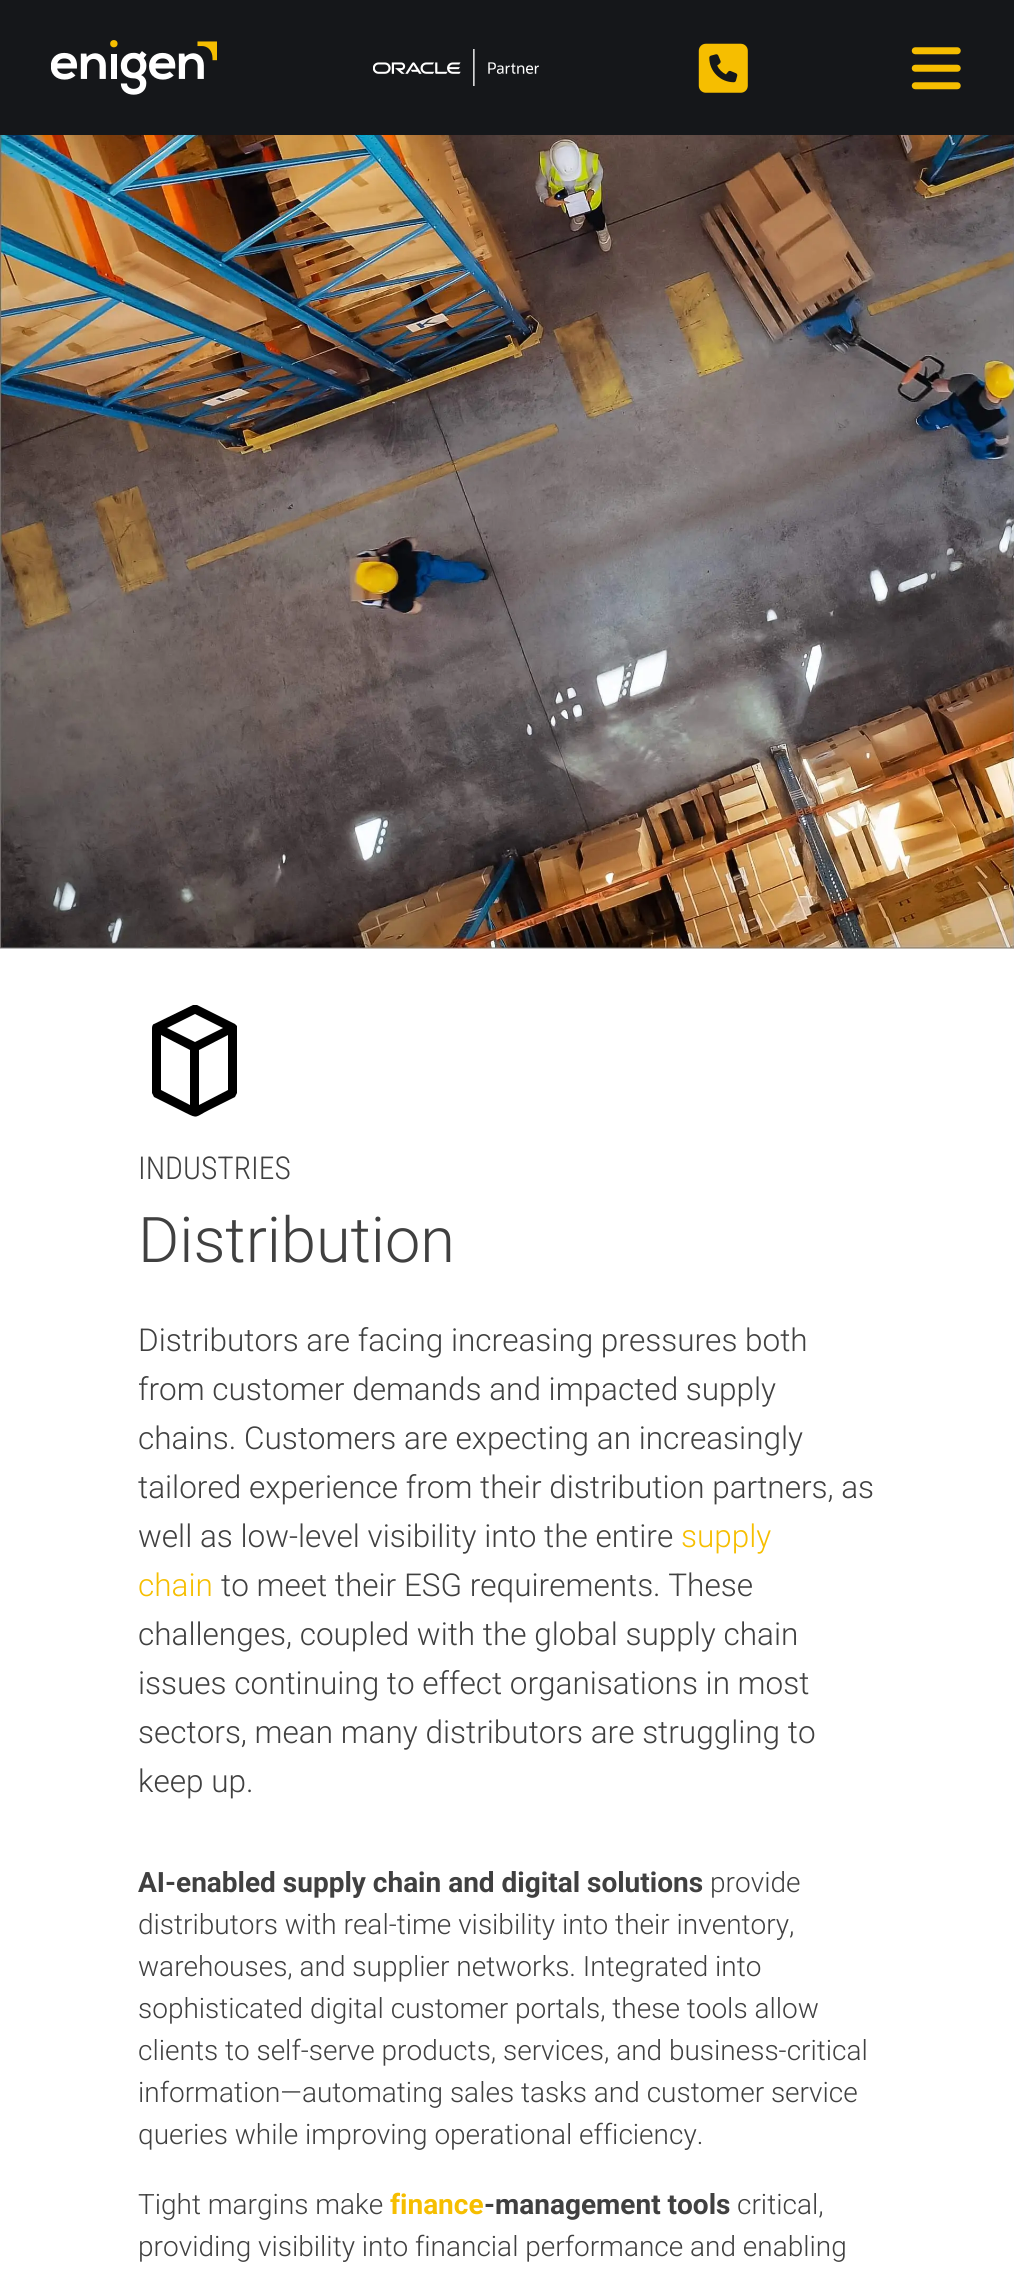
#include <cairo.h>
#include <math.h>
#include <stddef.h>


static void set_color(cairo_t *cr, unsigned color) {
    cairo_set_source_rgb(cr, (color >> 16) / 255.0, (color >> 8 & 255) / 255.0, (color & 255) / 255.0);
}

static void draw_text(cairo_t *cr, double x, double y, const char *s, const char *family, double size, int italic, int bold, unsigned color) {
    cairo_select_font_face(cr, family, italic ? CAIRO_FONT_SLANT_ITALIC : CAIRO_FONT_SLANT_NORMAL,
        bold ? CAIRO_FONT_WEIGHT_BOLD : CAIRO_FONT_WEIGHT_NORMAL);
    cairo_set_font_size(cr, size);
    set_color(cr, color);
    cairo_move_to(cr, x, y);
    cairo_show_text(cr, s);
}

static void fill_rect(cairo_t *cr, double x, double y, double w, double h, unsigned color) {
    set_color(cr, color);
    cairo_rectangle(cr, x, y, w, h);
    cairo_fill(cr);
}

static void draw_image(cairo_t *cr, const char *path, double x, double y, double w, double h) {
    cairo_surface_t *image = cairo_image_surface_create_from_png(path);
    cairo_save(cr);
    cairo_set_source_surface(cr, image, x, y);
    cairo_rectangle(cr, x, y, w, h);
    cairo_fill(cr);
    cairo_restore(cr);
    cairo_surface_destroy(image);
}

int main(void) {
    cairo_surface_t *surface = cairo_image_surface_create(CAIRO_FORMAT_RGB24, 1014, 2280);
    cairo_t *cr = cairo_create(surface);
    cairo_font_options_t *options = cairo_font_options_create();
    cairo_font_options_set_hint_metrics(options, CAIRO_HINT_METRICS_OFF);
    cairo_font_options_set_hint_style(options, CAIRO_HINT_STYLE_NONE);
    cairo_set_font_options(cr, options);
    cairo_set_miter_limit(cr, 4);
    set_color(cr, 0xFFFFFF);
    cairo_paint(cr);
    fill_rect(cr, 0, 0, 1014, 135, 0x15171A);
    draw_image(cr, "assets/img1.png", 51, 40, 166, 55);
    draw_image(cr, "assets/img2.png", 373, 49, 166, 37);
    draw_image(cr, "assets/img3.png", 698, 43, 50, 50);
    draw_image(cr, "assets/img4.png", 911, 47, 50, 43);
    draw_image(cr, "assets/img5.png", 0, 135, 1014, 814);
    set_color(cr, 0x000000);
    cairo_new_path(cr);
    cairo_move_to(cr, 237, 1026);
    cairo_line_to(cr, 235, 1024);
    cairo_line_to(cr, 197, 1005);
    cairo_line_to(cr, 193, 1005);
    cairo_line_to(cr, 154, 1024);
    cairo_curve_to(cr, 153, 1024, 152, 1026, 152, 1028);
    cairo_line_to(cr, 152, 1093);
    cairo_line_to(cr, 154, 1097);
    cairo_line_to(cr, 186, 1113);
    cairo_curve_to(cr, 198, 1119, 195, 1117, 209, 1110);
    cairo_line_to(cr, 235, 1097);
    cairo_line_to(cr, 237, 1093);
    cairo_line_to(cr, 237, 1028);
    cairo_line_to(cr, 237, 1026);
    cairo_move_to(cr, 195, 1014);
    cairo_line_to(cr, 223, 1028);
    cairo_line_to(cr, 195, 1042);
    cairo_line_to(cr, 167, 1028);
    cairo_close_path(cr);
    cairo_move_to(cr, 161, 1035);
    cairo_line_to(cr, 190, 1050);
    cairo_line_to(cr, 190, 1105);
    cairo_line_to(cr, 161, 1090);
    cairo_close_path(cr);
    cairo_move_to(cr, 199, 1105);
    cairo_line_to(cr, 199, 1050);
    cairo_line_to(cr, 228, 1035);
    cairo_line_to(cr, 228, 1090);
    cairo_close_path(cr);
    cairo_fill(cr);
    draw_text(cr, 138, 1179, "INDUSTRIES", "Roboto Condensed Light", 31.5, 0, 0, 0x404040);
    draw_text(cr, 138, 1262, "Distribution", "Roboto Light", 63, 0, 0, 0x404040);
    draw_text(cr, 138, 1351, "Distributors are facing increasing pressures both", "Roboto Light", 31.5, 0, 0, 0x404040);
    draw_text(cr, 138, 1400, "from customer demands and impacted supply", "Roboto Light", 31.5, 0, 0, 0x404040);
    draw_text(cr, 138, 1449, "chains. Customers are expecting an increasingly", "Roboto Light", 31.5, 0, 0, 0x404040);
    draw_text(cr, 138, 1498, "tailored experience from their distribution partners, as", "Roboto Light", 31.5, 0, 0, 0x404040);
    draw_text(cr, 138, 1547, "well as low-level visibility into the entire", "Roboto Light", 31.5, 0, 0, 0x404040);
    draw_text(cr, 681, 1547, "supply", "Roboto Light", 31.5, 0, 0, 0xF6BE00);
    draw_text(cr, 138, 1596, "chain", "Roboto Light", 31.5, 0, 0, 0xF6BE00);
    draw_text(cr, 221, 1596, "to meet their ESG requirements. These", "Roboto Light", 31.5, 0, 0, 0x404040);
    draw_text(cr, 138, 1645, "challenges, coupled with the global supply chain", "Roboto Light", 31.5, 0, 0, 0x404040);
    draw_text(cr, 138, 1694, "issues continuing to effect organisations in most", "Roboto Light", 31.5, 0, 0, 0x404040);
    draw_text(cr, 138, 1743, "sectors, mean many distributors are struggling to", "Roboto Light", 31.5, 0, 0, 0x404040);
    draw_text(cr, 138, 1792, "keep up.", "Roboto Light", 31.5, 0, 0, 0x404040);
    draw_text(cr, 138, 1892, "AI-enabled supply chain and digital solutions", "Roboto", 28, 0, 1, 0x404040);
    draw_text(cr, 710, 1892, "provide", "Roboto Light", 28, 0, 0, 0x404040);
    draw_text(cr, 138, 1934, "distributors with real-time visibility into their inventory,", "Roboto Light", 28, 0, 0, 0x404040);
    draw_text(cr, 138, 1976, "warehouses, and supplier networks. Integrated into", "Roboto Light", 28, 0, 0, 0x404040);
    draw_text(cr, 138, 2018, "sophisticated digital customer portals, these tools allow", "Roboto Light", 28, 0, 0, 0x404040);
    draw_text(cr, 138, 2060, "clients to self-serve products, services, and business-critical", "Roboto Light", 28, 0, 0, 0x404040);
    draw_text(cr, 138, 2102, "information—automating sales tasks and customer service", "Roboto Light", 28, 0, 0, 0x404040);
    draw_text(cr, 138, 2144, "queries while improving operational efficiency.", "Roboto Light", 28, 0, 0, 0x404040);
    draw_text(cr, 138, 2214, "Tight margins make", "Roboto Light", 28, 0, 0, 0x404040);
    draw_text(cr, 390, 2214, "finance", "Roboto", 28, 0, 1, 0xF6BE00);
    draw_text(cr, 484, 2214, "-management tools", "Roboto", 28, 0, 1, 0x404040);
    draw_text(cr, 737, 2214, "critical,", "Roboto Light", 28, 0, 0, 0x404040);
    draw_text(cr, 138, 2256, "providing visibility into financial performance and enabling", "Roboto Light", 28, 0, 0, 0x404040);
    cairo_surface_write_to_png(surface, "output.png");
    cairo_font_options_destroy(options);
    cairo_destroy(cr);
    cairo_surface_destroy(surface);
    return 0;
}
